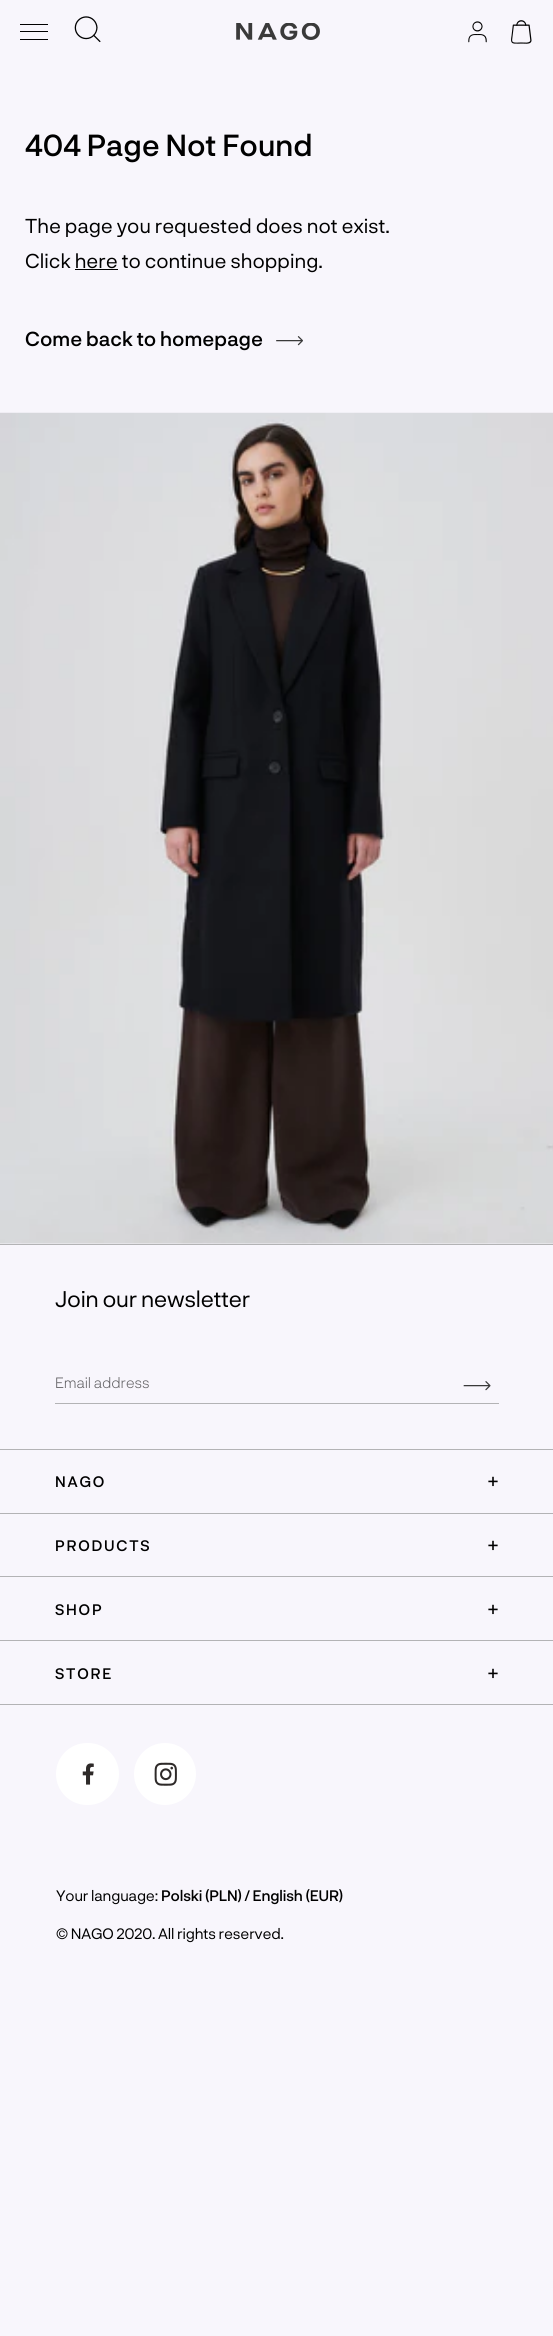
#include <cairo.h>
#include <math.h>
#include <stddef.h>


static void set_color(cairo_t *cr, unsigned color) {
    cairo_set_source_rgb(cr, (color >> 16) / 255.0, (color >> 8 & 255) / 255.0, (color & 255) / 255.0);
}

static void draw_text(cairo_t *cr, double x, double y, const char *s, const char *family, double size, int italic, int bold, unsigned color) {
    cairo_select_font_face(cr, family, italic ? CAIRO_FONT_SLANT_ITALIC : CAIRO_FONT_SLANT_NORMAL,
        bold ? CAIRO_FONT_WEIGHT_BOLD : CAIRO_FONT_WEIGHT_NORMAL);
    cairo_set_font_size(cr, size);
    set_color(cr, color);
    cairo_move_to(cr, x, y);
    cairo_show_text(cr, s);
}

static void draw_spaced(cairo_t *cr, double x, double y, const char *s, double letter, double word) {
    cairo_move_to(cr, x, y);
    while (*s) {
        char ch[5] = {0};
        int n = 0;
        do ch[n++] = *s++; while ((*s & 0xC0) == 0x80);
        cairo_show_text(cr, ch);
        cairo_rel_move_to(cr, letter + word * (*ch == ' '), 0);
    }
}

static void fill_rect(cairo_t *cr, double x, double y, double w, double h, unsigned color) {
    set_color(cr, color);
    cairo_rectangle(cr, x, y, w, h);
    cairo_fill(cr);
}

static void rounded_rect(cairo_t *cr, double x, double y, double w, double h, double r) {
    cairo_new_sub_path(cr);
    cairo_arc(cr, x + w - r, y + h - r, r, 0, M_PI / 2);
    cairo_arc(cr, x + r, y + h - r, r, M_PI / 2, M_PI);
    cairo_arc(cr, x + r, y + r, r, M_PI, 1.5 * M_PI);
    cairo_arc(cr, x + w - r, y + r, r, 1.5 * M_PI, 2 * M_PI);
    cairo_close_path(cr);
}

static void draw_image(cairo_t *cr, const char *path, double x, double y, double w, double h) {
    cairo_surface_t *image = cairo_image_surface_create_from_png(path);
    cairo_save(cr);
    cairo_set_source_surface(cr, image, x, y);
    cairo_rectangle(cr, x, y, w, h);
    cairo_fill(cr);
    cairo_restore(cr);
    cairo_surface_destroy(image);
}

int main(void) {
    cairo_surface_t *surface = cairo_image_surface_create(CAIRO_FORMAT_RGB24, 553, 2336);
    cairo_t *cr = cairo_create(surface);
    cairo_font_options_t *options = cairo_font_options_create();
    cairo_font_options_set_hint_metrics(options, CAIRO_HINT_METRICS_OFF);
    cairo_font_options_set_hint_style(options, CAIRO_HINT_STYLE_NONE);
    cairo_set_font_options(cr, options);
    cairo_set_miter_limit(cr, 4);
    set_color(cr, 0xF8F6FC);
    cairo_paint(cr);
    fill_rect(cr, 20, 24, 28, 1, 0x000000);
    fill_rect(cr, 20, 31, 28, 1, 0x000000);
    fill_rect(cr, 20, 39, 28, 1, 0x000000);
    draw_image(cr, "assets/img1.png", 74, 16, 27, 27);
    draw_image(cr, "assets/img2.png", 236, 23, 84, 17);
    draw_image(cr, "assets/img3.png", 468, 21, 19, 22);
    draw_image(cr, "assets/img4.png", 511, 20, 21, 24);
    draw_text(cr, 25, 156, "404 Page Not Found", "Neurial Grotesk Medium", 30, 0, 0, 0x000000);
    draw_text(cr, 25, 233, "The page you requested does not exist.", "Neurial Grotesk", 20, 0, 0, 0x000000);
    draw_text(cr, 25, 268, "Click here to continue shopping.", "Neurial Grotesk", 20, 0, 0, 0x000000);
    fill_rect(cr, 75, 269, 43, 1, 0x000000);
    draw_text(cr, 25, 346, "Come back to homepage", "Neurial Grotesk Medium", 20, 0, 0, 0x000000);
    draw_image(cr, "assets/img5.png", 276, 336, 27, 10);
    draw_image(cr, "assets/img6.png", 0, 412, 553, 832);
    fill_rect(cr, 0, 1244, 553, 1, 0xB3B3B5);
    cairo_select_font_face(cr, "Neurial Grotesk", CAIRO_FONT_SLANT_NORMAL, CAIRO_FONT_WEIGHT_NORMAL);
    cairo_set_font_size(cr, 22.5);
    set_color(cr, 0x000000);
    draw_spaced(cr, 55, 1307, "Join our newsletter", -0.25, 0);
    fill_rect(cr, 55, 1403, 444, 1, 0xB3B3B5);
    cairo_select_font_face(cr, "Neurial Grotesk Light", CAIRO_FONT_SLANT_NORMAL, CAIRO_FONT_WEIGHT_NORMAL);
    cairo_set_font_size(cr, 15);
    set_color(cr, 0x636265);
    draw_spaced(cr, 55, 1388, "Email address", -0.1, 0);
    draw_image(cr, "assets/img7.png", 463, 1381, 28, 10);
    fill_rect(cr, 0, 1449, 553, 1, 0xB3B3B5);
    cairo_select_font_face(cr, "Neurial Grotesk Medium", CAIRO_FONT_SLANT_NORMAL, CAIRO_FONT_WEIGHT_NORMAL);
    set_color(cr, 0x000000);
    draw_spaced(cr, 55, 1487, "NAGO", 1.75, 0);
    draw_text(cr, 487, 1488, "+", "Neurial Grotesk", 20, 0, 0, 0x000000);
    fill_rect(cr, 0, 1513, 553, 1, 0xB3B3B5);
    cairo_select_font_face(cr, "Neurial Grotesk Medium", CAIRO_FONT_SLANT_NORMAL, CAIRO_FONT_WEIGHT_NORMAL);
    cairo_set_font_size(cr, 15);
    set_color(cr, 0x000000);
    draw_spaced(cr, 55, 1551, "PRODUCTS", 1.75, 0);
    draw_text(cr, 487, 1552, "+", "Neurial Grotesk", 20, 0, 0, 0x000000);
    fill_rect(cr, 0, 1576, 553, 1, 0xB3B3B5);
    cairo_select_font_face(cr, "Neurial Grotesk Medium", CAIRO_FONT_SLANT_NORMAL, CAIRO_FONT_WEIGHT_NORMAL);
    cairo_set_font_size(cr, 15);
    set_color(cr, 0x000000);
    draw_spaced(cr, 55, 1615, "SHOP", 1.75, 0);
    draw_text(cr, 487, 1616, "+", "Neurial Grotesk", 20, 0, 0, 0x000000);
    fill_rect(cr, 0, 1640, 553, 1, 0xB3B3B5);
    fill_rect(cr, 0, 1704, 553, 1, 0xB3B3B5);
    cairo_select_font_face(cr, "Neurial Grotesk Medium", CAIRO_FONT_SLANT_NORMAL, CAIRO_FONT_WEIGHT_NORMAL);
    cairo_set_font_size(cr, 15);
    set_color(cr, 0x000000);
    draw_spaced(cr, 55, 1679, "STORE", 1.75, 0);
    draw_text(cr, 487, 1680, "+", "Neurial Grotesk", 20, 0, 0, 0x000000);
    set_color(cr, 0xFFFFFF);
    rounded_rect(cr, 56, 1743, 63, 62, 31);
    cairo_fill(cr);
    draw_image(cr, "assets/img8.png", 82, 1763, 12, 22);
    cairo_arc(cr, 165, 1774, 31, 0, 2 * M_PI);
    cairo_fill(cr);
    draw_image(cr, "assets/img9.png", 154, 1762, 23, 24);
    cairo_set_font_size(cr, 15);
    set_color(cr, 0x000000);
    draw_spaced(cr, 56, 1901, "Your language:", -0.15, 0);
    cairo_select_font_face(cr, "Neurial Grotesk Medium", CAIRO_FONT_SLANT_NORMAL, CAIRO_FONT_WEIGHT_NORMAL);
    draw_spaced(cr, 161, 1901, "Polski (PLN) / English (EUR)", -0.15, 0);
    cairo_select_font_face(cr, "Neurial Grotesk", CAIRO_FONT_SLANT_NORMAL, CAIRO_FONT_WEIGHT_NORMAL);
    draw_spaced(cr, 56, 1939, "© NAGO 2020. All rights reserved.", -0.15, 0);
    cairo_surface_write_to_png(surface, "output.png");
    cairo_font_options_destroy(options);
    cairo_destroy(cr);
    cairo_surface_destroy(surface);
    return 0;
}
